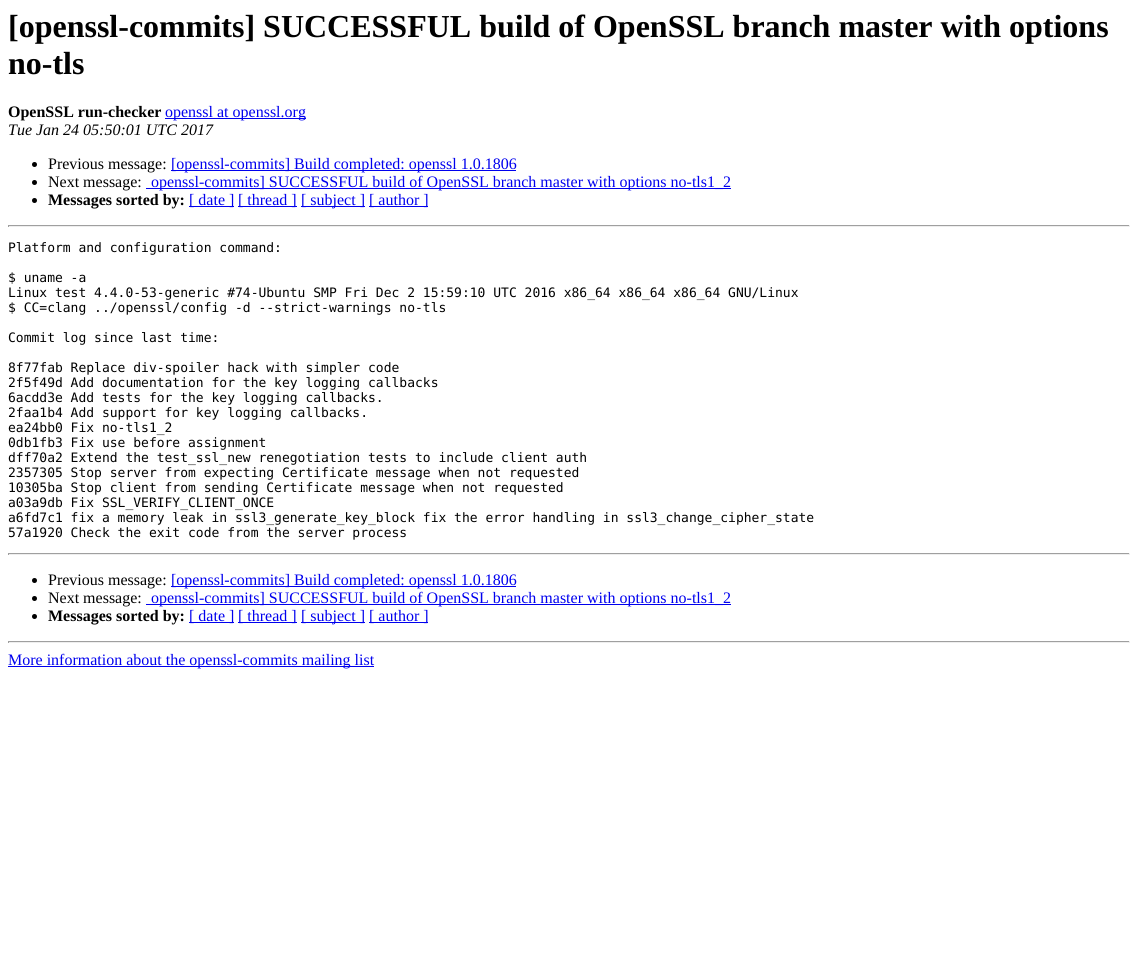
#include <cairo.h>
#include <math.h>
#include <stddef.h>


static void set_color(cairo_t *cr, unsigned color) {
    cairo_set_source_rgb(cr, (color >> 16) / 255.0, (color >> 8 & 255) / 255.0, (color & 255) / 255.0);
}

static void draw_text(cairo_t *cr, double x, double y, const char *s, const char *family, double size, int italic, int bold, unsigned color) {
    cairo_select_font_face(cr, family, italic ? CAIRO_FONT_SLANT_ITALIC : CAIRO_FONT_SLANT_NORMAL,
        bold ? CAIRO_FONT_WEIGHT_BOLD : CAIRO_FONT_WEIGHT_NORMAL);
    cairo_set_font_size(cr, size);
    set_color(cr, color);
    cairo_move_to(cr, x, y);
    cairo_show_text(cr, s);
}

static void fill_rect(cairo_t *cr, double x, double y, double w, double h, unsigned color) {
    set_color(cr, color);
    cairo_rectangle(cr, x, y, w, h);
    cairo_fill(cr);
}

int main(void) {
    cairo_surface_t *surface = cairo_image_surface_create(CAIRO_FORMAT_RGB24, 1138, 971);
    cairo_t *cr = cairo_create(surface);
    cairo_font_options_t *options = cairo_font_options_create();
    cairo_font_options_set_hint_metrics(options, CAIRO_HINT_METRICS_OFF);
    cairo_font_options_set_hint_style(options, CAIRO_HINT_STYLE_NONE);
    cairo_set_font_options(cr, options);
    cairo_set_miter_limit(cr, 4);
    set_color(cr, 0xFFFFFF);
    cairo_paint(cr);
    draw_text(cr, 8, 37, "[openssl-commits] SUCCESSFUL build of OpenSSL branch master with options", "Liberation Serif", 32, 0, 1, 0x000000);
    draw_text(cr, 8, 74, "no-tls", "Liberation Serif", 32, 0, 1, 0x000000);
    draw_text(cr, 8, 117, "OpenSSL run-checker", "Liberation Serif", 16, 0, 1, 0x000000);
    fill_rect(cr, 165, 118, 141, 1, 0x0000EE);
    draw_text(cr, 165, 117, "openssl at openssl.org", "Liberation Serif", 16, 0, 0, 0x0000EE);
    draw_text(cr, 8, 135, "Tue Jan 24 05:50:01 UTC 2017", "Liberation Serif", 16, 1, 0, 0x000000);
    cairo_new_path(cr);
    cairo_arc(cr, 34.5, 164.5, 2.5, 0, 2 * M_PI);
    cairo_fill(cr);
    draw_text(cr, 48, 169, "Previous message:", "Liberation Serif", 16, 0, 0, 0x000000);
    fill_rect(cr, 171, 170, 345, 1, 0x0000EE);
    draw_text(cr, 171, 169, "[openssl-commits] Build completed: openssl 1.0.1806", "Liberation Serif", 16, 0, 0, 0x0000EE);
    set_color(cr, 0x000000);
    cairo_new_path(cr);
    cairo_arc(cr, 34.5, 182.5, 2.5, 0, 2 * M_PI);
    cairo_fill(cr);
    draw_text(cr, 48, 187, "Next message:", "Liberation Serif", 16, 0, 0, 0x000000);
    fill_rect(cr, 146, 188, 585, 1, 0x0000EE);
    draw_text(cr, 151, 187, "openssl-commits] SUCCESSFUL build of OpenSSL branch master with options no-tls1_2", "Liberation Serif", 16, 0, 0, 0x0000EE);
    set_color(cr, 0x000000);
    cairo_new_path(cr);
    cairo_arc(cr, 34.5, 200.5, 2.5, 0, 2 * M_PI);
    cairo_fill(cr);
    draw_text(cr, 48, 205, "Messages sorted by:", "Liberation Serif", 16, 0, 1, 0x000000);
    fill_rect(cr, 189, 206, 45, 1, 0x0000EE);
    draw_text(cr, 189, 205, "[ date ]", "Liberation Serif", 16, 0, 0, 0x0000EE);
    fill_rect(cr, 238, 206, 59, 1, 0x0000EE);
    draw_text(cr, 238, 205, "[ thread ]", "Liberation Serif", 16, 0, 0, 0x0000EE);
    fill_rect(cr, 301, 206, 64, 1, 0x0000EE);
    draw_text(cr, 301, 205, "[ subject ]", "Liberation Serif", 16, 0, 0, 0x0000EE);
    fill_rect(cr, 369, 206, 59, 1, 0x0000EE);
    draw_text(cr, 369, 205, "[ author ]", "Liberation Serif", 16, 0, 0, 0x0000EE);
    fill_rect(cr, 8, 225, 1122, 1, 0x9F9F9F);
    fill_rect(cr, 1129, 225, 1, 2, 0xEEEEEE);
    fill_rect(cr, 8, 226, 1122, 1, 0xEEEEEE);
    fill_rect(cr, 8, 225, 1, 2, 0x9F9F9F);
    draw_text(cr, 8, 252, "Platform and configuration command:", "DejaVu Sans Mono", 13, 0, 0, 0x000000);
    draw_text(cr, 8, 282, "$ uname -a", "DejaVu Sans Mono", 13, 0, 0, 0x000000);
    draw_text(cr, 8, 297, "Linux test 4.4.0-53-generic #74-Ubuntu SMP Fri Dec 2 15:59:10 UTC 2016 x86_64 x86_64 x86_64 GNU/Linux", "DejaVu Sans Mono", 13, 0, 0, 0x000000);
    draw_text(cr, 8, 312, "$ CC=clang ../openssl/config -d --strict-warnings no-tls", "DejaVu Sans Mono", 13, 0, 0, 0x000000);
    draw_text(cr, 8, 342, "Commit log since last time:", "DejaVu Sans Mono", 13, 0, 0, 0x000000);
    draw_text(cr, 8, 372, "8f77fab Replace div-spoiler hack with simpler code", "DejaVu Sans Mono", 13, 0, 0, 0x000000);
    draw_text(cr, 8, 387, "2f5f49d Add documentation for the key logging callbacks", "DejaVu Sans Mono", 13, 0, 0, 0x000000);
    draw_text(cr, 8, 402, "6acdd3e Add tests for the key logging callbacks.", "DejaVu Sans Mono", 13, 0, 0, 0x000000);
    draw_text(cr, 8, 417, "2faa1b4 Add support for key logging callbacks.", "DejaVu Sans Mono", 13, 0, 0, 0x000000);
    draw_text(cr, 8, 432, "ea24bb0 Fix no-tls1_2", "DejaVu Sans Mono", 13, 0, 0, 0x000000);
    draw_text(cr, 8, 447, "0db1fb3 Fix use before assignment", "DejaVu Sans Mono", 13, 0, 0, 0x000000);
    draw_text(cr, 8, 462, "dff70a2 Extend the test_ssl_new renegotiation tests to include client auth", "DejaVu Sans Mono", 13, 0, 0, 0x000000);
    draw_text(cr, 8, 477, "2357305 Stop server from expecting Certificate message when not requested", "DejaVu Sans Mono", 13, 0, 0, 0x000000);
    draw_text(cr, 8, 492, "10305ba Stop client from sending Certificate message when not requested", "DejaVu Sans Mono", 13, 0, 0, 0x000000);
    draw_text(cr, 8, 507, "a03a9db Fix SSL_VERIFY_CLIENT_ONCE", "DejaVu Sans Mono", 13, 0, 0, 0x000000);
    draw_text(cr, 8, 522, "a6fd7c1 fix a memory leak in ssl3_generate_key_block fix the error handling in ssl3_change_cipher_state", "DejaVu Sans Mono", 13, 0, 0, 0x000000);
    draw_text(cr, 8, 537, "57a1920 Check the exit code from the server process", "DejaVu Sans Mono", 13, 0, 0, 0x000000);
    fill_rect(cr, 8, 553, 1122, 1, 0x9F9F9F);
    fill_rect(cr, 1129, 553, 1, 2, 0xEEEEEE);
    fill_rect(cr, 8, 554, 1122, 1, 0xEEEEEE);
    fill_rect(cr, 8, 553, 1, 2, 0x9F9F9F);
    set_color(cr, 0x000000);
    cairo_new_path(cr);
    cairo_arc(cr, 34.5, 580.5, 2.5, 0, 2 * M_PI);
    cairo_fill(cr);
    draw_text(cr, 48, 585, "Previous message:", "Liberation Serif", 16, 0, 0, 0x000000);
    fill_rect(cr, 171, 586, 345, 1, 0x0000EE);
    draw_text(cr, 171, 585, "[openssl-commits] Build completed: openssl 1.0.1806", "Liberation Serif", 16, 0, 0, 0x0000EE);
    set_color(cr, 0x000000);
    cairo_new_path(cr);
    cairo_arc(cr, 34.5, 598.5, 2.5, 0, 2 * M_PI);
    cairo_fill(cr);
    draw_text(cr, 48, 603, "Next message:", "Liberation Serif", 16, 0, 0, 0x000000);
    fill_rect(cr, 146, 604, 585, 1, 0x0000EE);
    draw_text(cr, 151, 603, "openssl-commits] SUCCESSFUL build of OpenSSL branch master with options no-tls1_2", "Liberation Serif", 16, 0, 0, 0x0000EE);
    set_color(cr, 0x000000);
    cairo_new_path(cr);
    cairo_arc(cr, 34.5, 616.5, 2.5, 0, 2 * M_PI);
    cairo_fill(cr);
    draw_text(cr, 48, 621, "Messages sorted by:", "Liberation Serif", 16, 0, 1, 0x000000);
    fill_rect(cr, 189, 622, 45, 1, 0x0000EE);
    draw_text(cr, 189, 621, "[ date ]", "Liberation Serif", 16, 0, 0, 0x0000EE);
    fill_rect(cr, 238, 622, 59, 1, 0x0000EE);
    draw_text(cr, 238, 621, "[ thread ]", "Liberation Serif", 16, 0, 0, 0x0000EE);
    fill_rect(cr, 301, 622, 64, 1, 0x0000EE);
    draw_text(cr, 301, 621, "[ subject ]", "Liberation Serif", 16, 0, 0, 0x0000EE);
    fill_rect(cr, 369, 622, 59, 1, 0x0000EE);
    draw_text(cr, 369, 621, "[ author ]", "Liberation Serif", 16, 0, 0, 0x0000EE);
    fill_rect(cr, 8, 641, 1122, 1, 0x9F9F9F);
    fill_rect(cr, 1129, 641, 1, 2, 0xEEEEEE);
    fill_rect(cr, 8, 642, 1122, 1, 0xEEEEEE);
    fill_rect(cr, 8, 641, 1, 2, 0x9F9F9F);
    fill_rect(cr, 8, 666, 366, 1, 0x0000EE);
    draw_text(cr, 8, 665, "More information about the openssl-commits mailing list", "Liberation Serif", 16, 0, 0, 0x0000EE);
    cairo_surface_write_to_png(surface, "output.png");
    cairo_font_options_destroy(options);
    cairo_destroy(cr);
    cairo_surface_destroy(surface);
    return 0;
}
